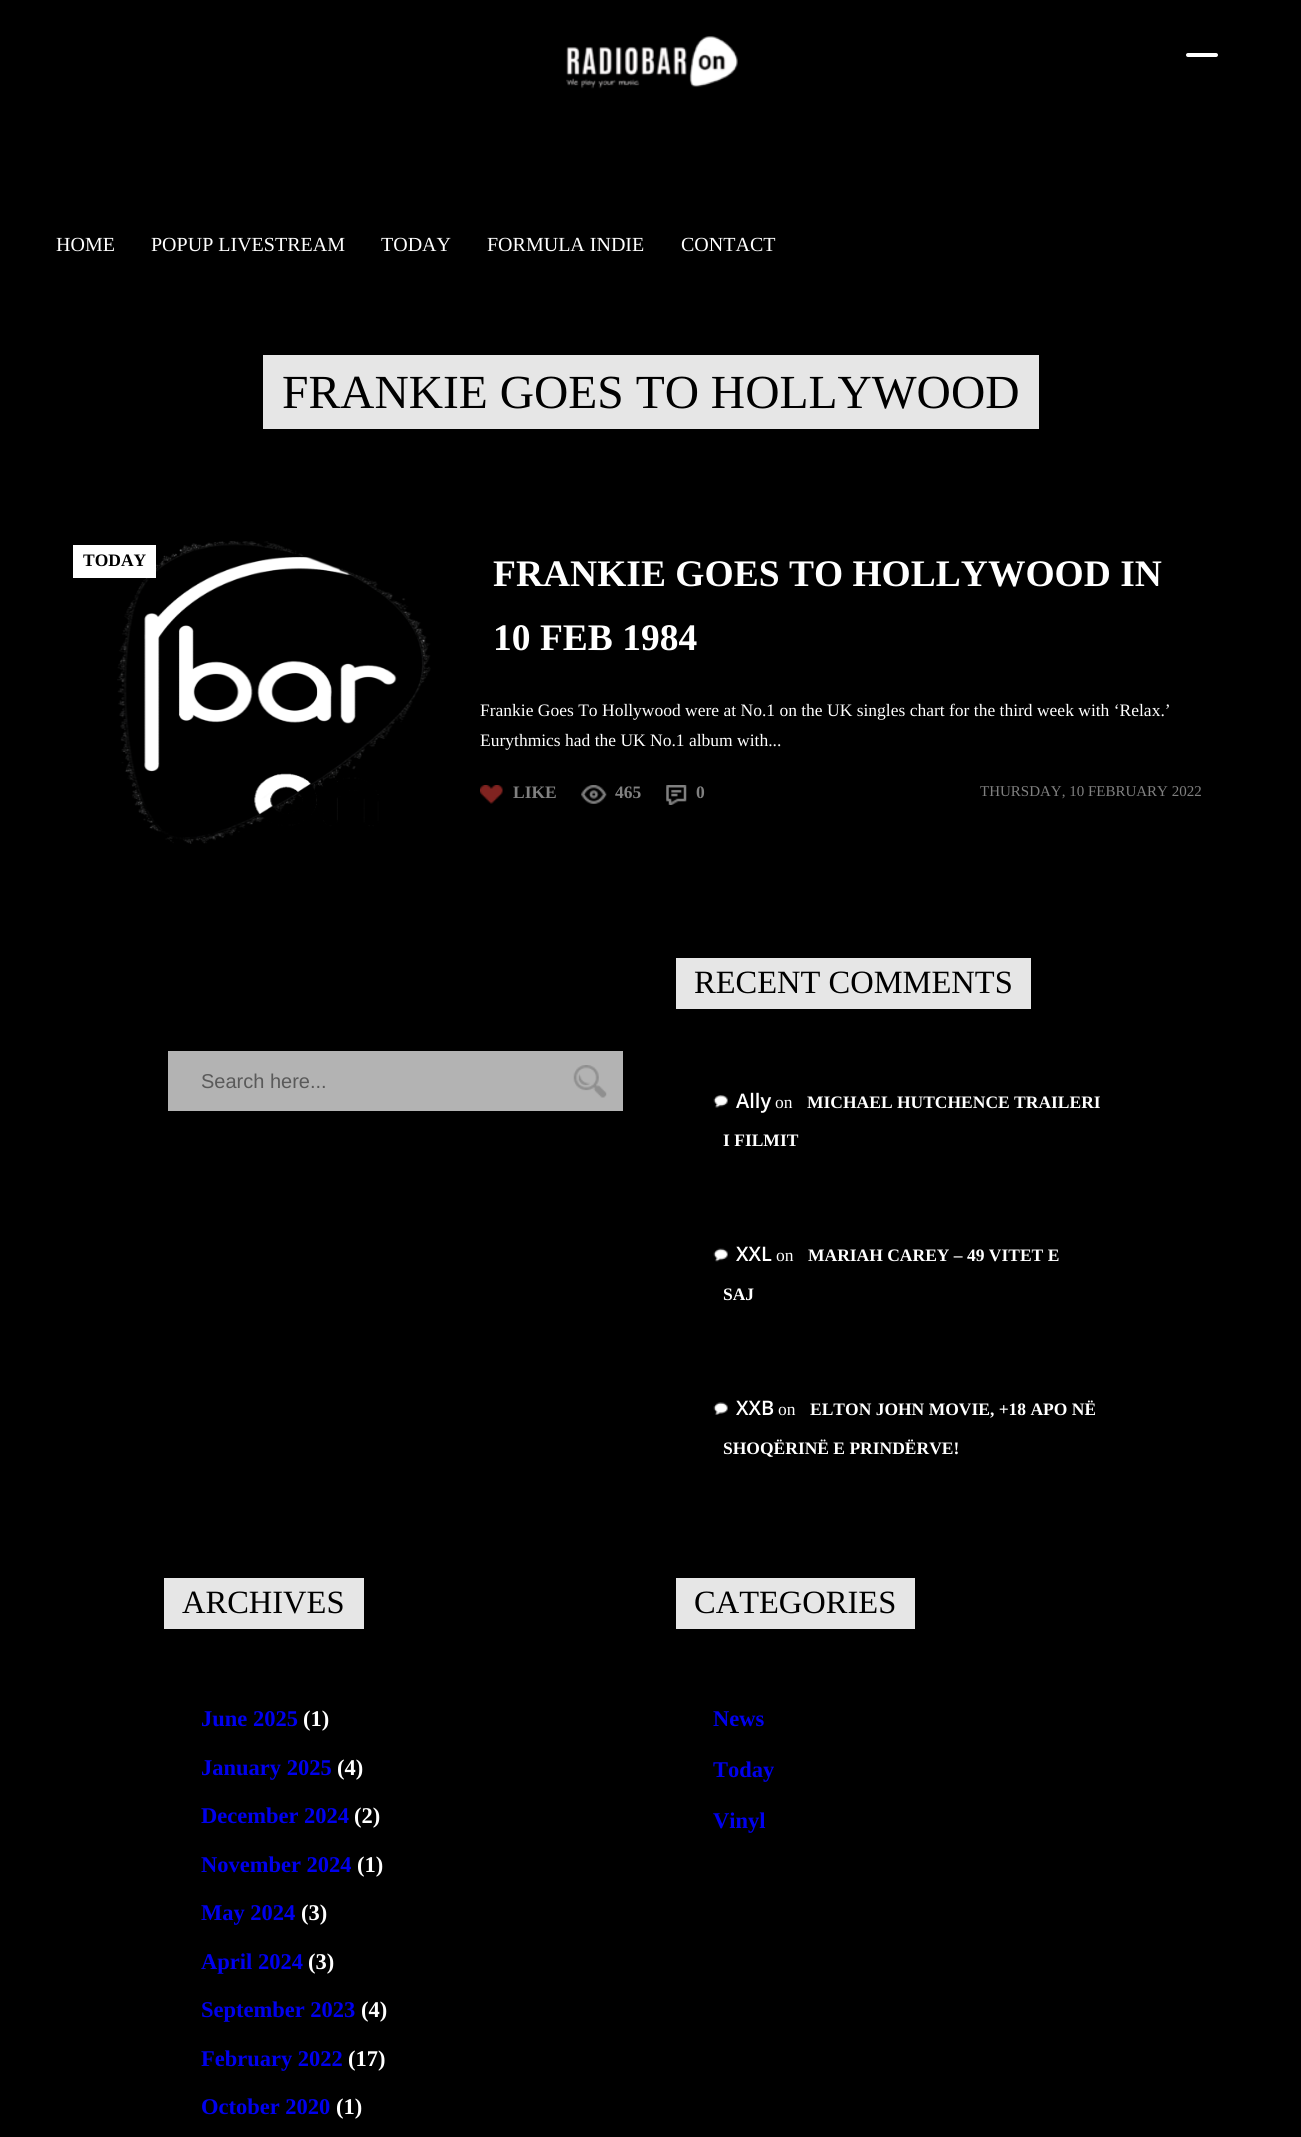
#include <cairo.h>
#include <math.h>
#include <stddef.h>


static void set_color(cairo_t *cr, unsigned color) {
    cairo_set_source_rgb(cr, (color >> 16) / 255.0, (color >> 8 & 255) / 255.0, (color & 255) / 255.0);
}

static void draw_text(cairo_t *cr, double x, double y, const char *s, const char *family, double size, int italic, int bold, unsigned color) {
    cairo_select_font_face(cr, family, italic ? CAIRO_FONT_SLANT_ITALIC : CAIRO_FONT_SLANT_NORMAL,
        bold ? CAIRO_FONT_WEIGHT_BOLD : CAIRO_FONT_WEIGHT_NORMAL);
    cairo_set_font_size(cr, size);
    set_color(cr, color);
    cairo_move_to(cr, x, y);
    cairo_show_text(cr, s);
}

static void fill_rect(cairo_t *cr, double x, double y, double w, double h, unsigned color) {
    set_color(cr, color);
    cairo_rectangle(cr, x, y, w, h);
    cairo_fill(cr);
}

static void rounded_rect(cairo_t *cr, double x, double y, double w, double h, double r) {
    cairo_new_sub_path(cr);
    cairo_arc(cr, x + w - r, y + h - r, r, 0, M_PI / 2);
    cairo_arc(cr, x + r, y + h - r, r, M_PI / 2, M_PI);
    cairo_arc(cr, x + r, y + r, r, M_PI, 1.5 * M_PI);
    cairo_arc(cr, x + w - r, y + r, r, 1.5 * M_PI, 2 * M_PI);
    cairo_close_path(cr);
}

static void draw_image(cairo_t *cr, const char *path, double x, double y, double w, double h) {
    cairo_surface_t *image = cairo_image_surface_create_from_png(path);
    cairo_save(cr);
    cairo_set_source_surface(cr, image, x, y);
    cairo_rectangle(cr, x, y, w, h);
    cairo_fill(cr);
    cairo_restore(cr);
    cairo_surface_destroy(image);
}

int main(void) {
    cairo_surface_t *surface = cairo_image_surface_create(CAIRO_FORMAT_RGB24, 1301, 2137);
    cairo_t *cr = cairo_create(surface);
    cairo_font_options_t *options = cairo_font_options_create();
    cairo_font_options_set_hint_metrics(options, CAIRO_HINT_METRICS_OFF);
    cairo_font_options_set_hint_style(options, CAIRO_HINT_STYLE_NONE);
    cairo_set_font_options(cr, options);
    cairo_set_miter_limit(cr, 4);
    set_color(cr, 0x000000);
    cairo_paint(cr);
    set_color(cr, 0xFFFFFF);
    rounded_rect(cr, 1186, 53, 32, 4, 2);
    cairo_fill(cr);
    draw_image(cr, "assets/img1.png", 566, 36, 172, 53);
    draw_text(cr, 56, 251, "HOME", "Liberation Serif", 20, 0, 0, 0xFFFFFF);
    draw_text(cr, 151, 251, "POPUP LIVESTREAM", "Liberation Serif", 20, 0, 0, 0xFFFFFF);
    draw_text(cr, 381, 251, "TODAY", "Liberation Serif", 20, 0, 0, 0xFFFFFF);
    draw_text(cr, 487, 251, "FORMULA INDIE", "Liberation Serif", 20, 0, 0, 0xFFFFFF);
    draw_text(cr, 681, 251, "CONTACT", "Liberation Serif", 20, 0, 0, 0xFFFFFF);
    fill_rect(cr, 263, 355, 776, 74, 0xE6E6E6);
    draw_text(cr, 282, 408, "FRANKIE GOES TO HOLLYWOOD", "Liberation Serif", 47.5, 0, 0, 0x000000);
    draw_image(cr, "assets/img2.png", 117, 541, 314, 303);
    fill_rect(cr, 73, 545, 83, 33, 0xFFFFFF);
    draw_text(cr, 83, 566, "TODAY", "Liberation Serif", 17.5, 0, 1, 0x000000);
    draw_text(cr, 493, 586, "FRANKIE GOES TO HOLLYWOOD IN", "Liberation Serif", 37.5, 0, 1, 0xFFFFFF);
    draw_text(cr, 493, 650, "10 FEB 1984", "Liberation Serif", 37.5, 0, 1, 0xFFFFFF);
    draw_text(cr, 480, 716, "Frankie Goes To Hollywood were at No.1 on the UK singles chart for the third week with ‘Relax.’", "Liberation Serif", 17.5, 0, 0, 0xFFFFFF);
    draw_text(cr, 480, 746, "Eurythmics had the UK No.1 album with...", "Liberation Serif", 17.5, 0, 0, 0xFFFFFF);
    draw_image(cr, "assets/img3.png", 480, 785, 23, 19);
    draw_text(cr, 513, 798, "LIKE", "Liberation Serif", 17.5, 0, 1, 0x808080);
    draw_image(cr, "assets/img4.png", 581, 785, 26, 19);
    draw_text(cr, 615, 798, "465", "Liberation Serif", 17.5, 0, 1, 0x808080);
    draw_image(cr, "assets/img5.png", 666, 785, 21, 20);
    draw_text(cr, 696, 798, "0", "Liberation Serif", 17.5, 0, 1, 0x808080);
    draw_text(cr, 980, 796, "THURSDAY, 10 FEBRUARY 2022", "Liberation Serif", 15, 0, 0, 0x808080);
    fill_rect(cr, 168, 1051, 455, 60, 0xB3B3B3);
    draw_text(cr, 201, 1088, "Search here...", "Liberation Sans", 20, 0, 0, 0x5A5A5A);
    draw_image(cr, "assets/img6.png", 573, 1065, 34, 33);
    fill_rect(cr, 676, 958, 355, 51, 0xE6E6E6);
    draw_text(cr, 694, 993, "RECENT COMMENTS", "Liberation Serif", 32.5, 0, 0, 0x000000);
    draw_image(cr, "assets/img7.png", 713, 1095, 15, 13);
    draw_text(cr, 736, 1108, "Ally", "Open Sans SemiBold", 20, 0, 0, 0xFFFFFF);
    draw_text(cr, 775, 1108, "on", "Liberation Serif", 17.5, 0, 0, 0xFFFFFF);
    draw_text(cr, 807, 1108, "MICHAEL HUTCHENCE TRAILERI", "Liberation Serif", 17.5, 0, 1, 0xFFFFFF);
    draw_text(cr, 723, 1146, "I FILMIT", "Liberation Serif", 17.5, 0, 1, 0xFFFFFF);
    draw_image(cr, "assets/img8.png", 713, 1248, 15, 14);
    draw_text(cr, 736, 1261, "XXL", "Open Sans SemiBold", 20, 0, 0, 0xFFFFFF);
    draw_text(cr, 776, 1261, "on", "Liberation Serif", 17.5, 0, 0, 0xFFFFFF);
    draw_text(cr, 808, 1261, "MARIAH CAREY – 49 VITET E", "Liberation Serif", 17.5, 0, 1, 0xFFFFFF);
    draw_text(cr, 723, 1300, "SAJ", "Liberation Serif", 17.5, 0, 1, 0xFFFFFF);
    draw_image(cr, "assets/img9.png", 713, 1402, 15, 13);
    draw_text(cr, 736, 1415, "XXB", "Open Sans SemiBold", 20, 0, 0, 0xFFFFFF);
    draw_text(cr, 778, 1415, "on", "Liberation Serif", 17.5, 0, 0, 0xFFFFFF);
    draw_text(cr, 810, 1415, "ELTON JOHN MOVIE, +18 APO NË", "Liberation Serif", 17.5, 0, 1, 0xFFFFFF);
    draw_text(cr, 723, 1454, "SHOQËRINË E PRINDËRVE!", "Liberation Serif", 17.5, 0, 1, 0xFFFFFF);
    fill_rect(cr, 164, 1578, 200, 51, 0xE6E6E6);
    draw_text(cr, 182, 1613, "ARCHIVES", "Liberation Serif", 32.5, 0, 0, 0x000000);
    draw_text(cr, 201, 1726, "June 2025", "Liberation Serif", 22.5, 0, 1, 0x0000EE);
    draw_text(cr, 303, 1726, "(1)", "Liberation Serif", 22.5, 0, 1, 0xFFFFFF);
    draw_text(cr, 201, 1775, "January 2025", "Liberation Serif", 22.5, 0, 1, 0x0000EE);
    draw_text(cr, 337, 1775, "(4)", "Liberation Serif", 22.5, 0, 1, 0xFFFFFF);
    draw_text(cr, 201, 1823, "December 2024", "Liberation Serif", 22.5, 0, 1, 0x0000EE);
    draw_text(cr, 354, 1823, "(2)", "Liberation Serif", 22.5, 0, 1, 0xFFFFFF);
    draw_text(cr, 201, 1872, "November 2024", "Liberation Serif", 22.5, 0, 1, 0x0000EE);
    draw_text(cr, 357, 1872, "(1)", "Liberation Serif", 22.5, 0, 1, 0xFFFFFF);
    draw_text(cr, 201, 1920, "May 2024", "Liberation Serif", 22.5, 0, 1, 0x0000EE);
    draw_text(cr, 301, 1920, "(3)", "Liberation Serif", 22.5, 0, 1, 0xFFFFFF);
    draw_text(cr, 201, 1969, "April 2024", "Liberation Serif", 22.5, 0, 1, 0x0000EE);
    draw_text(cr, 308, 1969, "(3)", "Liberation Serif", 22.5, 0, 1, 0xFFFFFF);
    draw_text(cr, 201, 2017, "September 2023", "Liberation Serif", 22.5, 0, 1, 0x0000EE);
    draw_text(cr, 361, 2017, "(4)", "Liberation Serif", 22.5, 0, 1, 0xFFFFFF);
    draw_text(cr, 201, 2066, "February 2022", "Liberation Serif", 22.5, 0, 1, 0x0000EE);
    draw_text(cr, 348, 2066, "(17)", "Liberation Serif", 22.5, 0, 1, 0xFFFFFF);
    draw_text(cr, 201, 2114, "October 2020", "Liberation Serif", 22.5, 0, 1, 0x0000EE);
    draw_text(cr, 336, 2114, "(1)", "Liberation Serif", 22.5, 0, 1, 0xFFFFFF);
    fill_rect(cr, 676, 1578, 239, 51, 0xE6E6E6);
    draw_text(cr, 694, 1613, "CATEGORIES", "Liberation Serif", 32.5, 0, 0, 0x000000);
    draw_text(cr, 713, 1726, "News", "Liberation Serif", 22.5, 0, 1, 0x0000EE);
    draw_text(cr, 713, 1777, "Today", "Liberation Serif", 22.5, 0, 1, 0x0000EE);
    draw_text(cr, 713, 1828, "Vinyl", "Liberation Serif", 22.5, 0, 1, 0x0000EE);
    cairo_surface_write_to_png(surface, "output.png");
    cairo_font_options_destroy(options);
    cairo_destroy(cr);
    cairo_surface_destroy(surface);
    return 0;
}
